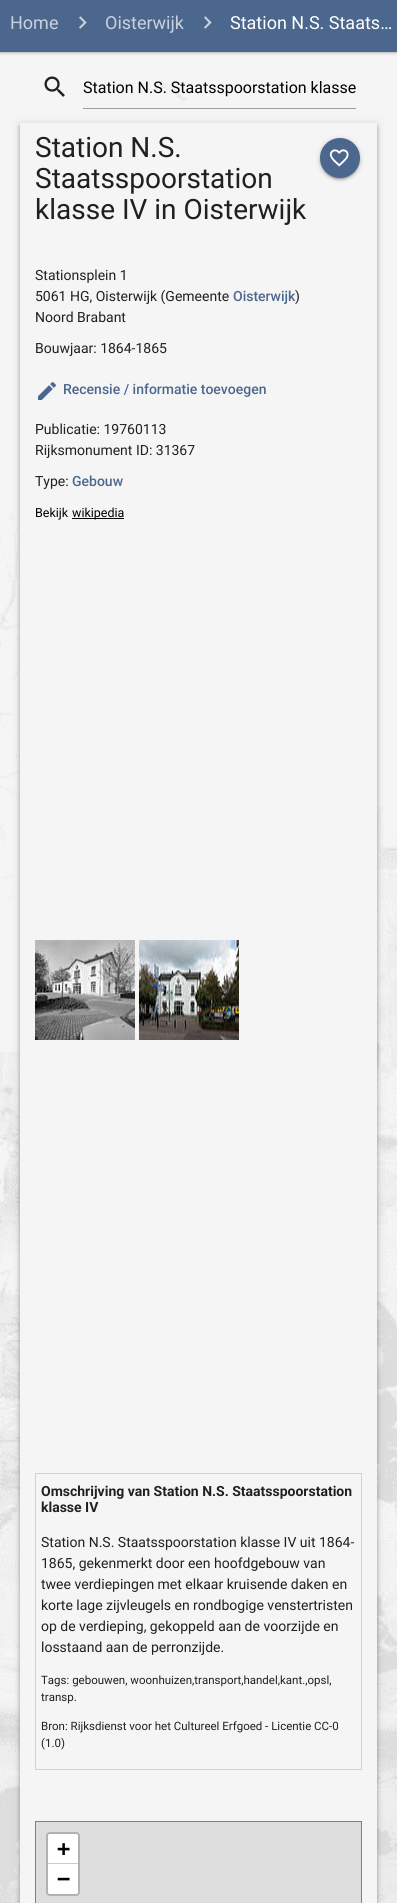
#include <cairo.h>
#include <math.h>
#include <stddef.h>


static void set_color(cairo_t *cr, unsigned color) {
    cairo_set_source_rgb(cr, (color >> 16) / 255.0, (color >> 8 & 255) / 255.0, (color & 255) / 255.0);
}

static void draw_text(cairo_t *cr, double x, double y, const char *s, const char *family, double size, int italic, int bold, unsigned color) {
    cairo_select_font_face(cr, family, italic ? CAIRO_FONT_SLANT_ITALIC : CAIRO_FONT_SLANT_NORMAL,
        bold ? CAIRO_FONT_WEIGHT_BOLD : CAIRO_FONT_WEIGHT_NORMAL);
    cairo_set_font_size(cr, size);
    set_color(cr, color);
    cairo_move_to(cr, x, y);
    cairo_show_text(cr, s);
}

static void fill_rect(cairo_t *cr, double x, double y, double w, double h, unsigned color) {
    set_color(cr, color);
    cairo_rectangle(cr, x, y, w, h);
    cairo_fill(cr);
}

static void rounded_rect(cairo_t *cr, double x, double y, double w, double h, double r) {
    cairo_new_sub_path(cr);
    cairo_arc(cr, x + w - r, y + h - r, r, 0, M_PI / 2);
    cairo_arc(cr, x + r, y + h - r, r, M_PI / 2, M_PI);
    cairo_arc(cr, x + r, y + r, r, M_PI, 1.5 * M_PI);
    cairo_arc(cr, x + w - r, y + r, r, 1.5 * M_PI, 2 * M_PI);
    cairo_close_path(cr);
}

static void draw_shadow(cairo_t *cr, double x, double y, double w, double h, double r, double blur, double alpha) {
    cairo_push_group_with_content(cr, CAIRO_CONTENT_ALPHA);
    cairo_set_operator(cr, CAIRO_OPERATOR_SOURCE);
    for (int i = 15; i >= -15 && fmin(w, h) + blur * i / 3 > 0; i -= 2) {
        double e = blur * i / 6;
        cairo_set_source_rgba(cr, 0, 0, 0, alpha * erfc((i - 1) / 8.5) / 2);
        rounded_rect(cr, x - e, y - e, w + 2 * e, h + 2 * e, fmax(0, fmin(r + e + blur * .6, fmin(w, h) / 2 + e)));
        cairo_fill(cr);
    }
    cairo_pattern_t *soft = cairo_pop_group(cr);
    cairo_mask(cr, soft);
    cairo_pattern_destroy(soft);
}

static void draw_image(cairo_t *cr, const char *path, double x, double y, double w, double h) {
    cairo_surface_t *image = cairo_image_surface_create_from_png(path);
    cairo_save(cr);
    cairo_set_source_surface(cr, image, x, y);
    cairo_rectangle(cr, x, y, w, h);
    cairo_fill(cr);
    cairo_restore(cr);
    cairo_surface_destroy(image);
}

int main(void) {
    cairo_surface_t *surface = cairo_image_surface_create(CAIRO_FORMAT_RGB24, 397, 1903);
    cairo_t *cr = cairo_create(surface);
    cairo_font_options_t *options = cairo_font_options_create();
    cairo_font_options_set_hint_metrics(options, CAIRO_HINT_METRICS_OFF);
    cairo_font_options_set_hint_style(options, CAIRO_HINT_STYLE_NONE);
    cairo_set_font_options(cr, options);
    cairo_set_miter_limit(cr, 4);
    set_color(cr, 0xFFFFFF);
    cairo_paint(cr);
    draw_image(cr, "assets/img1.png", 0, 52, 397, 1851);
    set_color(cr, 0x000000);
    draw_shadow(cr, 0, -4, 397, 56, 0, 2.5, 0.2);
    draw_shadow(cr, 0, -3, 397, 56, 0, 1, 0.14);
    fill_rect(cr, 0, 0, 397, 52, 0x4C678E);
    draw_text(cr, 10, 29, "Home", "Roboto", 18, 0, 0, 0xC9D1DD);
    draw_image(cr, "assets/img2.png", 79, 16, 8, 13);
    draw_text(cr, 105, 29, "Oisterwijk", "Roboto", 18, 0, 0, 0xC9D1DD);
    draw_image(cr, "assets/img2.png", 204, 16, 8, 13);
    draw_text(cr, 230, 29, "Station N.S. Staats…", "Roboto", 18, 0, 0, 0xFFFFFF);
    draw_image(cr, "assets/img3.png", 44, 76, 21, 21);
    set_color(cr, 0x000000);
    draw_shadow(cr, 20, 124, 357, 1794, 0, 5, 0.12);
    fill_rect(cr, 83, 108, 273, 1, 0x9E9E9E);
    draw_text(cr, 83, 93, "Station N.S. Staatsspoorstation klasse", "Roboto", 16, 0, 0, 0x000000);
    set_color(cr, 0x000000);
    draw_shadow(cr, 21, 126, 355, 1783, 0, 2, 0.3);
    draw_shadow(cr, 20, 127, 357, 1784, 0, 2.5, 0.14);
    fill_rect(cr, 20, 123, 357, 1780, 0xF5F5F5);
    draw_text(cr, 35, 157, "Station N.S.", "Roboto", 28, 0, 0, 0x202020);
    draw_text(cr, 35, 188, "Staatsspoorstation", "Roboto", 28, 0, 0, 0x202020);
    draw_text(cr, 35, 219, "klasse IV in Oisterwijk", "Roboto", 28, 0, 0, 0x202020);
    set_color(cr, 0x000000);
    draw_shadow(cr, 320, 139, 40, 40, 20, 2.5, 0.2);
    draw_shadow(cr, 322, 143, 36, 36, 18, 0.5, 0.12);
    draw_shadow(cr, 320, 140, 40, 40, 20, 1, 0.14);
    set_color(cr, 0x4C678E);
    cairo_arc(cr, 340, 158, 20, 0, 2 * M_PI);
    cairo_fill(cr);
    draw_image(cr, "assets/img4.png", 329, 149, 20, 18);
    draw_text(cr, 35, 280, "Stationsplein 1", "Roboto", 14, 0, 0, 0x202020);
    draw_text(cr, 35, 301, "5061 HG, Oisterwijk (Gemeente", "Roboto", 14, 0, 0, 0x202020);
    draw_text(cr, 233, 301, "Oisterwijk", "Roboto Medium", 14, 0, 0, 0x4C678E);
    draw_text(cr, 295, 301, ")", "Roboto", 14, 0, 0, 0x202020);
    draw_text(cr, 35, 322, "Noord Brabant", "Roboto", 14, 0, 0, 0x202020);
    draw_text(cr, 35, 353, "Bouwjaar: 1864-1865", "Roboto", 14, 0, 0, 0x202020);
    draw_image(cr, "assets/img5.png", 38, 382, 18, 18);
    draw_text(cr, 63, 394, "Recensie / informatie toevoegen", "Roboto Medium", 14, 0, 0, 0x4C678E);
    draw_text(cr, 35, 434, "Publicatie: 19760113", "Roboto", 14, 0, 0, 0x202020);
    draw_text(cr, 35, 455, "Rijksmonument ID: 31367", "Roboto", 14, 0, 0, 0x202020);
    draw_text(cr, 35, 486, "Type:", "Roboto", 14, 0, 0, 0x202020);
    draw_text(cr, 72, 486, "Gebouw", "Roboto Medium", 14, 0, 0, 0x4C678E);
    draw_text(cr, 35, 517, "Bekijk", "Roboto", 12.5, 0, 0, 0x000000);
    fill_rect(cr, 72, 518, 52, 1, 0x000000);
    draw_text(cr, 72, 517, "wikipedia", "Roboto", 12.5, 0, 0, 0x000000);
    draw_image(cr, "assets/img6.png", 35, 940, 100, 100);
    draw_image(cr, "assets/img7.png", 139, 940, 100, 100);
    cairo_rectangle(cr, 35.5, 1473.5, 326, 296);
    set_color(cr, 0xD2D2D2);
    cairo_set_line_width(cr, 1);
    cairo_stroke(cr);
    draw_text(cr, 41, 1496, "Omschrijving van Station N.S. Staatsspoorstation", "Roboto", 14, 0, 1, 0x202020);
    draw_text(cr, 41, 1512, "klasse IV", "Roboto", 14, 0, 1, 0x202020);
    draw_text(cr, 41, 1547, "Station N.S. Staatsspoorstation klasse IV uit 1864-", "Roboto", 14, 0, 0, 0x202020);
    draw_text(cr, 41, 1568, "1865, gekenmerkt door een hoofdgebouw van", "Roboto", 14, 0, 0, 0x202020);
    draw_text(cr, 41, 1589, "twee verdiepingen met elkaar kruisende daken en", "Roboto", 14, 0, 0, 0x202020);
    draw_text(cr, 41, 1610, "korte lage zijvleugels en rondbogige venstertristen", "Roboto", 14, 0, 0, 0x202020);
    draw_text(cr, 41, 1631, "op de verdieping, gekoppeld aan de voorzijde en", "Roboto", 14, 0, 0, 0x202020);
    draw_text(cr, 41, 1652, "losstaand aan de perronzijde.", "Roboto", 14, 0, 0, 0x202020);
    draw_text(cr, 41, 1684, "Tags: gebouwen, woonhuizen,transport,handel,kant.,opsl,", "Roboto", 11.5, 0, 0, 0x202020);
    draw_text(cr, 41, 1701, "transp.", "Roboto", 11.5, 0, 0, 0x202020);
    draw_text(cr, 41, 1730, "Bron: Rijksdienst voor het Cultureel Erfgoed - Licentie CC-0", "Roboto", 11.5, 0, 0, 0x202020);
    draw_text(cr, 41, 1747, "(1.0)", "Roboto", 11.5, 0, 0, 0x202020);
    set_color(cr, 0xDDDDDD);
    cairo_rectangle(cr, 35.5, 1821.5, 326, 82);
    cairo_fill_preserve(cr);
    set_color(cr, 0x808080);
    cairo_stroke(cr);
    rounded_rect(cr, 47, 1833, 32, 62, 3);
    set_color(cr, 0xB1B1B1);
    cairo_set_line_width(cr, 2);
    cairo_stroke(cr);
    set_color(cr, 0xFFFFFF);
    cairo_new_path(cr);
    cairo_move_to(cr, 50, 1834);
    cairo_line_to(cr, 76, 1834);
    cairo_curve_to(cr, 77, 1834, 78, 1835, 78, 1836);
    cairo_line_to(cr, 78, 1864);
    cairo_line_to(cr, 48, 1864);
    cairo_line_to(cr, 48, 1836);
    cairo_curve_to(cr, 48, 1835, 49, 1834, 50, 1834);
    cairo_close_path(cr);
    cairo_fill(cr);
    fill_rect(cr, 48, 1863, 30, 1, 0xCCCCCC);
    draw_text(cr, 57, 1856, "+", "DejaVu Sans Mono", 22, 0, 1, 0x000000);
    set_color(cr, 0xFFFFFF);
    cairo_new_path(cr);
    cairo_move_to(cr, 48, 1864);
    cairo_line_to(cr, 78, 1864);
    cairo_line_to(cr, 78, 1892);
    cairo_curve_to(cr, 78, 1893, 77, 1894, 76, 1894);
    cairo_line_to(cr, 50, 1894);
    cairo_curve_to(cr, 49, 1894, 48, 1893, 48, 1892);
    cairo_close_path(cr);
    cairo_fill(cr);
    draw_text(cr, 57, 1886, "−", "DejaVu Sans Mono", 22, 0, 1, 0x000000);
    cairo_surface_write_to_png(surface, "output.png");
    cairo_font_options_destroy(options);
    cairo_destroy(cr);
    cairo_surface_destroy(surface);
    return 0;
}
